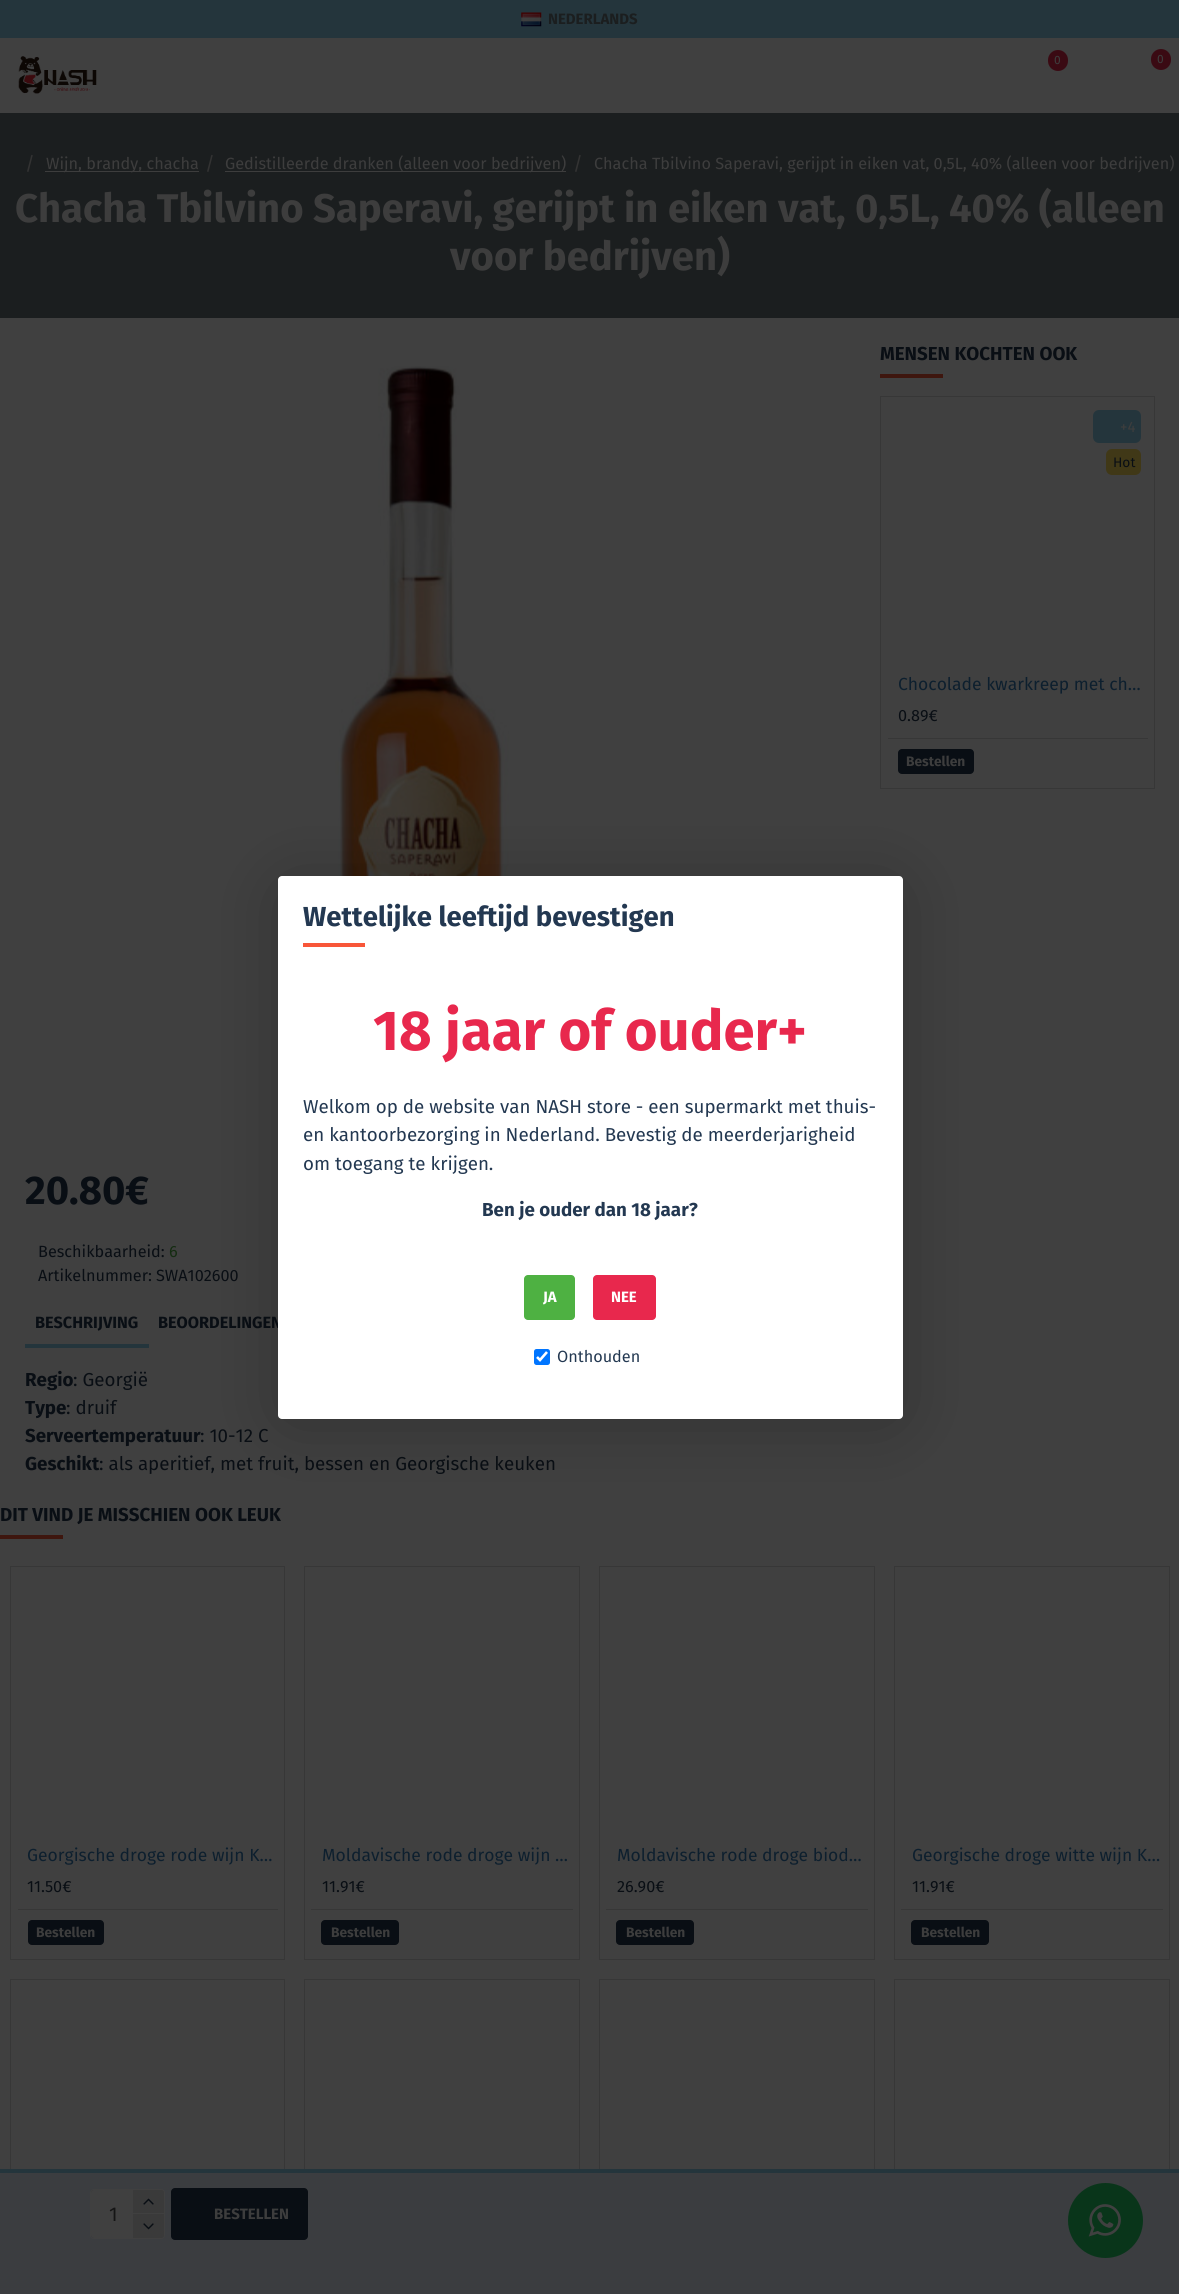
#include <cairo.h>
#include <math.h>
#include <stddef.h>


static void set_color(cairo_t *cr, unsigned color) {
    cairo_set_source_rgb(cr, (color >> 16) / 255.0, (color >> 8 & 255) / 255.0, (color & 255) / 255.0);
}

static void draw_text(cairo_t *cr, double x, double y, const char *s, const char *family, double size, int italic, int bold, unsigned color) {
    cairo_select_font_face(cr, family, italic ? CAIRO_FONT_SLANT_ITALIC : CAIRO_FONT_SLANT_NORMAL,
        bold ? CAIRO_FONT_WEIGHT_BOLD : CAIRO_FONT_WEIGHT_NORMAL);
    cairo_set_font_size(cr, size);
    set_color(cr, color);
    cairo_move_to(cr, x, y);
    cairo_show_text(cr, s);
}

static void fill_rect(cairo_t *cr, double x, double y, double w, double h, unsigned color) {
    set_color(cr, color);
    cairo_rectangle(cr, x, y, w, h);
    cairo_fill(cr);
}

static void rounded_rect(cairo_t *cr, double x, double y, double w, double h, double r) {
    cairo_new_sub_path(cr);
    cairo_arc(cr, x + w - r, y + h - r, r, 0, M_PI / 2);
    cairo_arc(cr, x + r, y + h - r, r, M_PI / 2, M_PI);
    cairo_arc(cr, x + r, y + r, r, M_PI, 1.5 * M_PI);
    cairo_arc(cr, x + w - r, y + r, r, 1.5 * M_PI, 2 * M_PI);
    cairo_close_path(cr);
}

static void draw_shadow(cairo_t *cr, double x, double y, double w, double h, double r, double blur, double alpha) {
    cairo_push_group_with_content(cr, CAIRO_CONTENT_ALPHA);
    cairo_set_operator(cr, CAIRO_OPERATOR_SOURCE);
    for (int i = 15; i >= -15 && fmin(w, h) + blur * i / 3 > 0; i -= 2) {
        double e = blur * i / 6;
        cairo_set_source_rgba(cr, 0, 0, 0, alpha * erfc((i - 1) / 8.5) / 2);
        rounded_rect(cr, x - e, y - e, w + 2 * e, h + 2 * e, fmax(0, fmin(r + e + blur * .6, fmin(w, h) / 2 + e)));
        cairo_fill(cr);
    }
    cairo_pattern_t *soft = cairo_pop_group(cr);
    cairo_mask(cr, soft);
    cairo_pattern_destroy(soft);
}

static void draw_image(cairo_t *cr, const char *path, double x, double y, double w, double h) {
    cairo_surface_t *image = cairo_image_surface_create_from_png(path);
    cairo_save(cr);
    cairo_set_source_surface(cr, image, x, y);
    cairo_rectangle(cr, x, y, w, h);
    cairo_fill(cr);
    cairo_restore(cr);
    cairo_surface_destroy(image);
}

int main(void) {
    cairo_surface_t *surface = cairo_image_surface_create(CAIRO_FORMAT_RGB24, 1179, 2294);
    cairo_t *cr = cairo_create(surface);
    cairo_font_options_t *options = cairo_font_options_create();
    cairo_font_options_set_hint_metrics(options, CAIRO_HINT_METRICS_OFF);
    cairo_font_options_set_hint_style(options, CAIRO_HINT_STYLE_NONE);
    cairo_set_font_options(cr, options);
    cairo_set_miter_limit(cr, 4);
    set_color(cr, 0x404040);
    cairo_paint(cr);
    fill_rect(cr, 0, 0, 1179, 38, 0x24353C);
    draw_image(cr, "assets/img1.png", 521, 12, 21, 15);
    draw_text(cr, 548, 24, "NEDERLANDS", "Fira Sans", 15, 0, 1, 0x1B1E1F);
    draw_image(cr, "assets/img2.png", 18, 56, 79, 38);
    set_color(cr, 0x3A0A13);
    rounded_rect(cr, 1048, 50, 20, 21, 10);
    cairo_fill(cr);
    draw_text(cr, 1054, 64, "0", "Fira Sans", 12, 0, 0, 0x3D3D3D);
    set_color(cr, 0x3A0A13);
    rounded_rect(cr, 1151, 49, 20, 21, 10);
    cairo_fill(cr);
    draw_text(cr, 1157, 63, "0", "Fira Sans", 12, 0, 0, 0x3D3D3D);
    fill_rect(cr, 0, 113, 1179, 205, 0x1B1E1F);
    draw_text(cr, 25, 170, "/", "Fira Sans", 18.75, 0, 0, 0x333333);
    fill_rect(cr, 45, 171, 154, 1, 0x3D3D3D);
    draw_text(cr, 46, 169, "Wijn, brandy, chacha", "Fira Sans", 16.25, 0, 0, 0x3D3D3D);
    draw_text(cr, 205, 170, "/", "Fira Sans", 18.75, 0, 0, 0x333333);
    fill_rect(cr, 225, 171, 341, 1, 0x3D3D3D);
    draw_text(cr, 225, 169, "Gedistilleerde dranken (alleen voor bedrijven)", "Fira Sans", 16.25, 0, 0, 0x3D3D3D);
    draw_text(cr, 573, 170, "/", "Fira Sans", 18.75, 0, 0, 0x333333);
    draw_text(cr, 594, 169, "Chacha Tbilvino Saperavi, gerijpt in eiken vat, 0,5L, 40% (alleen voor bedrijven)", "Fira Sans", 16.25, 0, 0, 0x3D3D3D);
    draw_text(cr, 15, 222, "Chacha Tbilvino Saperavi, gerijpt in eiken vat, 0,5L, 40% (alleen", "Fira Sans", 40, 0, 1, 0x3D3D3D);
    draw_text(cr, 450, 270, "voor bedrijven)", "Fira Sans", 40, 0, 1, 0x3D3D3D);
    draw_text(cr, 880, 360, "MENSEN KOCHTEN OOK", "Fira Sans", 18.75, 0, 1, 0x090E14);
    fill_rect(cr, 880, 374, 63, 4, 0x3E160E);
    cairo_rectangle(cr, 880.5, 396.5, 274, 392);
    set_color(cr, 0x373737);
    cairo_set_line_width(cr, 1);
    cairo_stroke(cr);
    set_color(cr, 0x24353C);
    rounded_rect(cr, 1093, 410, 48, 33, 6);
    cairo_fill(cr);
    draw_text(cr, 1120, 432, "+4", "Fira Sans", 15, 0, 0, 0x3D3D3D);
    set_color(cr, 0x403817);
    rounded_rect(cr, 1106, 449, 35, 26, 6);
    cairo_fill(cr);
    draw_text(cr, 1113, 467, "Hot", "Fira Sans", 13.75, 0, 0, 0x090E14);
    draw_text(cr, 898, 690, "Chocolade kwarkreep met ch…", "Fira Sans", 17.5, 0, 0, 0x0D1F2E);
    draw_text(cr, 898, 721, "0.89€", "Fira Sans", 16.25, 0, 0, 0x090E14);
    fill_rect(cr, 888, 738, 260, 1, 0x373737);
    set_color(cr, 0x090E14);
    rounded_rect(cr, 898, 749, 76, 25, 4);
    cairo_fill(cr);
    draw_text(cr, 906, 766, "Bestellen", "Fira Sans", 13.75, 0, 1, 0x3D3D3D);
    draw_image(cr, "assets/img3.png", 313, 366, 221, 510);
    draw_text(cr, 25, 1204, "20.80€", "Fira Sans", 40, 0, 1, 0x090E14);
    draw_text(cr, 38, 1257, "Beschikbaarheid:", "Fira Sans", 16.25, 0, 0, 0x090E14);
    draw_text(cr, 169, 1257, "6", "Fira Sans", 16.25, 0, 0, 0x142C11);
    draw_text(cr, 38, 1281, "Artikelnummer:", "Fira Sans", 16.25, 0, 0, 0x090E14);
    draw_text(cr, 156, 1281, "SWA102600", "Fira Sans", 16.25, 0, 0, 0x090E14);
    cairo_rectangle(cr, 10.5, 1979.5, 274, 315);
    set_color(cr, 0x373737);
    cairo_stroke(cr);
    cairo_rectangle(cr, 304.5, 1979.5, 275, 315);
    cairo_stroke(cr);
    cairo_rectangle(cr, 599.5, 1979.5, 275, 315);
    cairo_stroke(cr);
    cairo_rectangle(cr, 894.5, 1979.5, 275, 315);
    cairo_stroke(cr);
    fill_rect(cr, 0, 2173, 1179, 121, 0x3B3D40);
    fill_rect(cr, 0, 2169, 1179, 4, 0x24353C);
    rounded_rect(cr, 90.5, 2189.5, 74, 49, 3.5);
    set_color(cr, 0x404040);
    cairo_stroke(cr);
    cairo_save(cr);
    rounded_rect(cr, 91, 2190, 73, 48, 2.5);
    cairo_clip(cr);
    set_color(cr, 0x151515);
    draw_shadow(cr, 94, 2195, 67, 43, 0, 9.5, 1);
    cairo_restore(cr);
    rounded_rect(cr, 91, 2190, 73, 48, 2.5);
    cairo_fill(cr);
    draw_text(cr, 109, 2221, "1", "Fira Sans", 20, 0, 0, 0x151515);
    set_color(cr, 0x3A3A3A);
    cairo_new_path(cr);
    cairo_move_to(cr, 133, 2190);
    cairo_line_to(cr, 161.5, 2190);
    cairo_curve_to(cr, 163, 2190, 164, 2191, 164, 2192.5);
    cairo_line_to(cr, 164, 2213);
    cairo_line_to(cr, 133, 2213);
    cairo_close_path(cr);
    cairo_fill(cr);
    draw_image(cr, "assets/img4.png", 143, 2198, 11, 7);
    cairo_new_path(cr);
    cairo_move_to(cr, 133, 2214);
    cairo_line_to(cr, 164, 2214);
    cairo_line_to(cr, 164, 2235.5);
    cairo_curve_to(cr, 164, 2237, 163, 2238, 161.5, 2238);
    cairo_line_to(cr, 133, 2238);
    cairo_close_path(cr);
    cairo_fill(cr);
    draw_image(cr, "assets/img5.png", 143, 2223, 11, 7);
    set_color(cr, 0x090E14);
    rounded_rect(cr, 171, 2188, 137, 52, 4);
    cairo_fill(cr);
    draw_text(cr, 214, 2219, "BESTELLEN", "Fira Sans", 15, 0, 1, 0x3D3D3D);
    fill_rect(cr, 25, 1344, 124, 4, 0x24353C);
    draw_text(cr, 35, 1328, "BESCHRIJVING", "Fira Sans", 16.25, 0, 1, 0x090E14);
    draw_text(cr, 158, 1328, "BEOORDELINGEN", "Fira Sans", 16.25, 0, 1, 0x090E14);
    draw_text(cr, 25, 1386, "Regio", "Fira Sans", 18.75, 0, 1, 0x090E14);
    draw_text(cr, 73, 1386, ": Georgië", "Fira Sans", 18.75, 0, 0, 0x090E14);
    draw_text(cr, 25, 1414, "Type", "Fira Sans", 18.75, 0, 1, 0x090E14);
    draw_text(cr, 66, 1414, ": druif", "Fira Sans", 18.75, 0, 0, 0x090E14);
    draw_text(cr, 25, 1442, "Serveertemperatuur", "Fira Sans", 18.75, 0, 1, 0x090E14);
    draw_text(cr, 200, 1442, ": 10-12 С", "Fira Sans", 18.75, 0, 0, 0x090E14);
    draw_text(cr, 25, 1470, "Geschikt", "Fira Sans", 18.75, 0, 1, 0x090E14);
    draw_text(cr, 99, 1470, ": als aperitief, met fruit, bessen en Georgische keuken", "Fira Sans", 18.75, 0, 0, 0x090E14);
    draw_text(cr, 0, 1521, "DIT VIND JE MISSCHIEN OOK LEUK", "Fira Sans", 18.75, 0, 1, 0x090E14);
    fill_rect(cr, 0, 1535, 63, 4, 0x3E160E);
    cairo_rectangle(cr, 10.5, 1566.5, 274, 393);
    set_color(cr, 0x373737);
    cairo_stroke(cr);
    draw_text(cr, 27, 1861, "Georgische droge rode wijn K…", "Fira Sans", 17.5, 0, 0, 0x0D1F2E);
    draw_text(cr, 27, 1892, "11.50€", "Fira Sans", 16.25, 0, 0, 0x090E14);
    fill_rect(cr, 18, 1909, 260, 1, 0x373737);
    set_color(cr, 0x090E14);
    rounded_rect(cr, 28, 1920, 76, 25, 4);
    cairo_fill(cr);
    draw_text(cr, 36, 1937, "Bestellen", "Fira Sans", 13.75, 0, 1, 0x3D3D3D);
    cairo_rectangle(cr, 304.5, 1566.5, 275, 393);
    set_color(cr, 0x373737);
    cairo_stroke(cr);
    draw_text(cr, 322, 1861, "Moldavische rode droge wijn …", "Fira Sans", 17.5, 0, 0, 0x0D1F2E);
    draw_text(cr, 322, 1892, "11.91€", "Fira Sans", 16.25, 0, 0, 0x090E14);
    fill_rect(cr, 311, 1909, 262, 1, 0x373737);
    set_color(cr, 0x090E14);
    rounded_rect(cr, 321, 1920, 78, 25, 4);
    cairo_fill(cr);
    draw_text(cr, 331, 1937, "Bestellen", "Fira Sans", 13.75, 0, 1, 0x3D3D3D);
    cairo_rectangle(cr, 599.5, 1566.5, 275, 393);
    set_color(cr, 0x373737);
    cairo_stroke(cr);
    draw_text(cr, 617, 1861, "Moldavische rode droge biod…", "Fira Sans", 17.5, 0, 0, 0x0D1F2E);
    draw_text(cr, 617, 1892, "26.90€", "Fira Sans", 16.25, 0, 0, 0x090E14);
    fill_rect(cr, 606, 1909, 262, 1, 0x373737);
    set_color(cr, 0x090E14);
    rounded_rect(cr, 616, 1920, 78, 25, 4);
    cairo_fill(cr);
    draw_text(cr, 626, 1937, "Bestellen", "Fira Sans", 13.75, 0, 1, 0x3D3D3D);
    cairo_rectangle(cr, 894.5, 1566.5, 275, 393);
    set_color(cr, 0x373737);
    cairo_stroke(cr);
    draw_text(cr, 912, 1861, "Georgische droge witte wijn K…", "Fira Sans", 17.5, 0, 0, 0x0D1F2E);
    draw_text(cr, 912, 1892, "11.91€", "Fira Sans", 16.25, 0, 0, 0x090E14);
    fill_rect(cr, 901, 1909, 262, 1, 0x373737);
    set_color(cr, 0x090E14);
    rounded_rect(cr, 911, 1920, 78, 25, 4);
    cairo_fill(cr);
    draw_text(cr, 921, 1937, "Bestellen", "Fira Sans", 13.75, 0, 1, 0x3D3D3D);
    set_color(cr, 0x000000);
    draw_shadow(cr, 290, 895, 600, 518, 0, 37.5, 0.3);
    set_color(cr, 0xFFFFFF);
    rounded_rect(cr, 278, 876, 625, 543, 4);
    cairo_fill(cr);
    draw_text(cr, 303, 926, "Wettelijke leeftijd bevestigen", "Fira Sans", 27.5, 0, 1, 0x233851);
    fill_rect(cr, 303, 943, 62, 4, 0xF85639);
    draw_text(cr, 373, 1050, "18 jaar of ouder+", "Fira Sans", 56.25, 0, 1, 0xE8284D);
    draw_text(cr, 303, 1113, "Welkom op de website van NASH store - een supermarkt met thuis-", "Fira Sans", 18.75, 0, 0, 0x233851);
    draw_text(cr, 303, 1141, "en kantoorbezorging in Nederland. Bevestig de meerderjarigheid", "Fira Sans", 18.75, 0, 0, 0x233851);
    draw_text(cr, 303, 1170, "om toegang te krijgen.", "Fira Sans", 18.75, 0, 0, 0x233851);
    draw_text(cr, 482, 1216, "Ben je ouder dan 18 jaar?", "Fira Sans", 18.75, 0, 1, 0x233851);
    set_color(cr, 0x4EB142);
    rounded_rect(cr, 524, 1275, 51, 45, 4);
    cairo_fill(cr);
    draw_text(cr, 543, 1302, "JA", "Fira Sans", 15, 0, 1, 0xFFFFFF);
    set_color(cr, 0xE8284D);
    rounded_rect(cr, 593, 1275, 63, 45, 4);
    cairo_fill(cr);
    draw_text(cr, 611, 1302, "NEE", "Fira Sans", 15, 0, 1, 0xFFFFFF);
    set_color(cr, 0x0075FF);
    rounded_rect(cr, 534, 1349, 16, 16, 2.5);
    cairo_fill(cr);
    cairo_new_path(cr);
    cairo_move_to(cr, 537, 1357);
    cairo_line_to(cr, 540, 1360);
    cairo_line_to(cr, 547, 1352);
    set_color(cr, 0xFFFFFF);
    cairo_set_line_width(cr, 2.6);
    cairo_stroke(cr);
    draw_text(cr, 557, 1362, "Onthouden", "Fira Sans", 16.25, 0, 0, 0x233851);
    set_color(cr, 0x09351A);
    cairo_new_path(cr);
    cairo_arc(cr, 1105.5, 2220.5, 37.5, 0, 2 * M_PI);
    cairo_fill(cr);
    draw_image(cr, "assets/img6.png", 1088, 2204, 33, 33);
    cairo_surface_write_to_png(surface, "output.png");
    cairo_font_options_destroy(options);
    cairo_destroy(cr);
    cairo_surface_destroy(surface);
    return 0;
}
